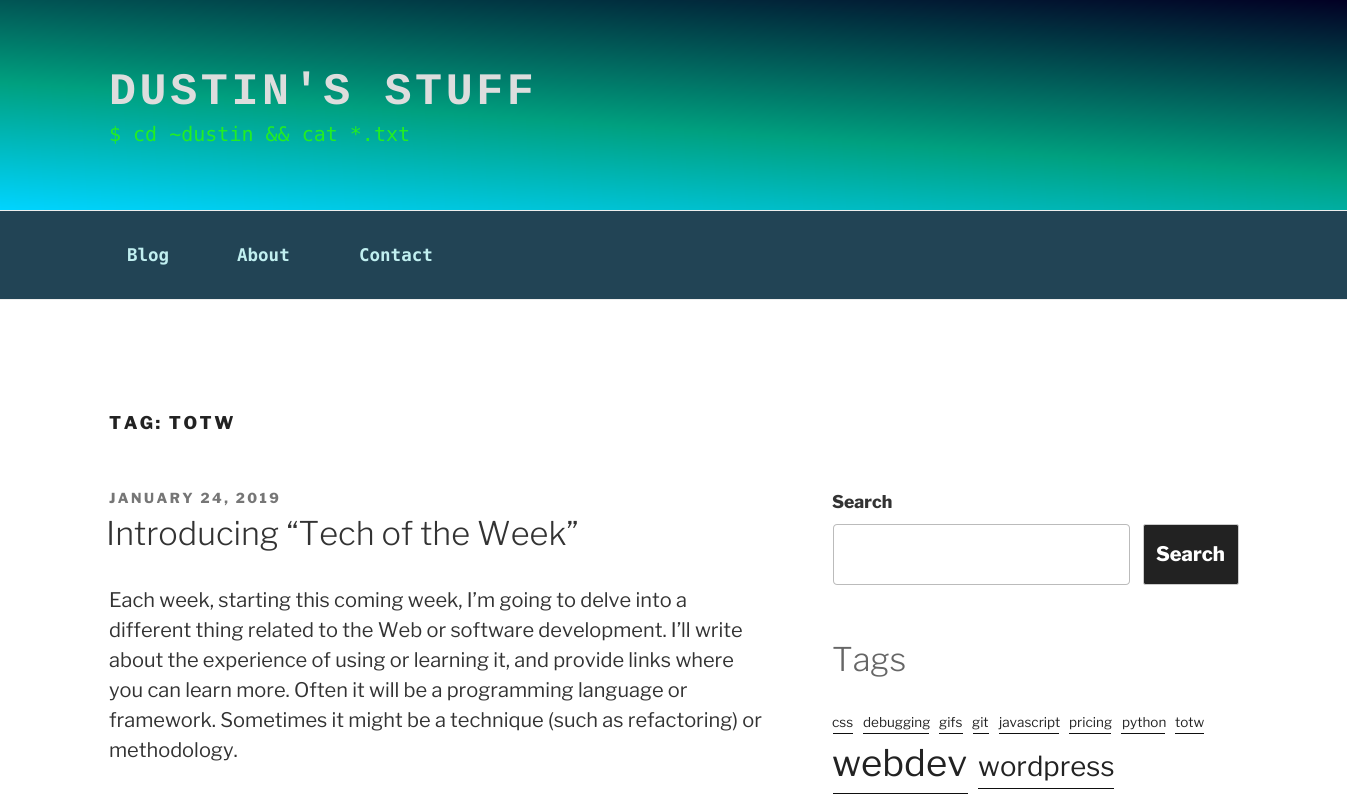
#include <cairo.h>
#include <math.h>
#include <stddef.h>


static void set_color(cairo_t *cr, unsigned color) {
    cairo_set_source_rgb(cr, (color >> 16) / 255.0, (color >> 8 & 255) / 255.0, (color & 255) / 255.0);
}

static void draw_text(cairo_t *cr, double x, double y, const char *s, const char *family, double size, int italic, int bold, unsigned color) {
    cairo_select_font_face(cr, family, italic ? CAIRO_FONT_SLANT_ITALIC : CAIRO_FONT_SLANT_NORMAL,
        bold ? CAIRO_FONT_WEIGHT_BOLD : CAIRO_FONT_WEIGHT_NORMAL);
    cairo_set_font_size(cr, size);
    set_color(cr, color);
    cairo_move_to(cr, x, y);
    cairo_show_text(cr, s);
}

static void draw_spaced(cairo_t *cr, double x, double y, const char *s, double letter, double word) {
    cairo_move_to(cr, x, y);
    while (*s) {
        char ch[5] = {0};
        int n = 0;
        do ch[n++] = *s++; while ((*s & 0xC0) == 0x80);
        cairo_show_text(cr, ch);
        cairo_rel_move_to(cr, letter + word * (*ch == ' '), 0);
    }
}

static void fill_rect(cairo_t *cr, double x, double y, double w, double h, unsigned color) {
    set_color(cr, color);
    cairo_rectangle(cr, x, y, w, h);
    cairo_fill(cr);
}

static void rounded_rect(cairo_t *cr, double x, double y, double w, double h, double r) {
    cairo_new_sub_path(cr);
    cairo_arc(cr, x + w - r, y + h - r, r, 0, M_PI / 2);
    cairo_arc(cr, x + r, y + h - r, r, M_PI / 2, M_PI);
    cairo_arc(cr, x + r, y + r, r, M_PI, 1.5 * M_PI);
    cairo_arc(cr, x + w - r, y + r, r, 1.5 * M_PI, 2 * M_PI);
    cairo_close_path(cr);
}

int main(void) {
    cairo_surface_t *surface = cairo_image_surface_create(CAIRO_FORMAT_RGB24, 1347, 806);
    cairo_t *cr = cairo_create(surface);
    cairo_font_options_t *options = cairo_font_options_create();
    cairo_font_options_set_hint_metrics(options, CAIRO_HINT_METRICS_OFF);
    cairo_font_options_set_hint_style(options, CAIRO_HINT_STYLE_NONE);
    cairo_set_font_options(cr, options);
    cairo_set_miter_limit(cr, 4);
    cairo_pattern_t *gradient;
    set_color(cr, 0xFFFFFF);
    cairo_paint(cr);
    gradient = cairo_pattern_create_linear(684, -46, 663, 256);
    cairo_pattern_add_color_stop_rgba(gradient, 0, 0.008, 0, 0.141, 1);
    cairo_pattern_add_color_stop_rgba(gradient, 0.58, 0, 0.627, 0.498, 1);
    cairo_pattern_add_color_stop_rgba(gradient, 1, 0, 0.831, 1, 1);
    cairo_set_source(cr, gradient);
    cairo_pattern_destroy(gradient);
    cairo_rectangle(cr, 0, 0, 1347, 210);
    cairo_fill(cr);
    cairo_select_font_face(cr, "Liberation Mono", CAIRO_FONT_SLANT_NORMAL, CAIRO_FONT_WEIGHT_BOLD);
    cairo_set_font_size(cr, 45);
    set_color(cr, 0xDDDDDD);
    draw_spaced(cr, 109, 104, "DUSTIN'S STUFF", 3.6, 0);
    draw_text(cr, 109, 141, "$ cd ~dustin && cat *.txt", "DejaVu Sans Mono", 20, 0, 0, 0x22EE22);
    fill_rect(cr, 0, 211, 1347, 88, 0x224455);
    fill_rect(cr, 0, 210, 1347, 1, 0xEEEEEE);
    fill_rect(cr, 0, 299, 1347, 1, 0xEEEEEE);
    draw_text(cr, 127, 261, "Blog", "DejaVu Sans Mono", 17.5, 0, 1, 0xC0EFF0);
    draw_text(cr, 237, 261, "About", "DejaVu Sans Mono", 17.5, 0, 1, 0xC0EFF0);
    draw_text(cr, 359, 261, "Contact", "DejaVu Sans Mono", 17.5, 0, 1, 0xC0EFF0);
    cairo_select_font_face(cr, "Libre Franklin ExtraBold", CAIRO_FONT_SLANT_NORMAL, CAIRO_FONT_WEIGHT_NORMAL);
    set_color(cr, 0x222222);
    draw_spaced(cr, 109, 429, "TAG: TOTW", 2.5, 0);
    cairo_set_font_size(cr, 13.75);
    set_color(cr, 0x767676);
    draw_spaced(cr, 109, 503, "JANUARY 24, 2019", 2.5, 0);
    draw_text(cr, 106, 545, "Introducing “Tech of the Week”", "Libre Franklin Light", 32.5, 0, 0, 0x333333);
    draw_text(cr, 109, 607, "Each week, starting this coming week, I’m going to delve into a", "Libre Franklin", 20, 0, 0, 0x333333);
    draw_text(cr, 109, 637, "different thing related to the Web or software development. I’ll write", "Libre Franklin", 20, 0, 0, 0x333333);
    draw_text(cr, 109, 667, "about the experience of using or learning it, and provide links where", "Libre Franklin", 20, 0, 0, 0x333333);
    draw_text(cr, 109, 697, "you can learn more. Often it will be a programming language or", "Libre Franklin", 20, 0, 0, 0x333333);
    draw_text(cr, 109, 727, "framework. Sometimes it might be a technique (such as refactoring) or", "Libre Franklin", 20, 0, 0, 0x333333);
    draw_text(cr, 109, 757, "methodology.", "Libre Franklin", 20, 0, 0, 0x333333);
    draw_text(cr, 832, 508, "Search", "Libre Franklin ExtraBold", 17.5, 0, 0, 0x333333);
    rounded_rect(cr, 833.5, 524.5, 296, 60, 3.5);
    set_color(cr, 0xBBBBBB);
    cairo_set_line_width(cr, 1);
    cairo_stroke(cr);
    set_color(cr, 0x222222);
    rounded_rect(cr, 1143.5, 524.5, 95, 60, 2);
    cairo_fill_preserve(cr);
    set_color(cr, 0xCCCCCC);
    cairo_stroke(cr);
    draw_text(cr, 1156, 561, "Search", "Libre Franklin ExtraBold", 20, 0, 0, 0xFFFFFF);
    draw_text(cr, 832, 671, "Tags", "Libre Franklin Light", 32.5, 0, 0, 0x666666);
    fill_rect(cr, 833, 733, 20, 1, 0x0F0F0F);
    draw_text(cr, 832, 727, "css", "Libre Franklin", 13.5, 0, 0, 0x222222);
    fill_rect(cr, 863, 733, 66, 1, 0x0F0F0F);
    draw_text(cr, 863, 727, "debugging", "Libre Franklin", 13.5, 0, 0, 0x222222);
    fill_rect(cr, 939, 733, 24, 1, 0x0F0F0F);
    draw_text(cr, 939, 727, "gifs", "Libre Franklin", 13.5, 0, 0, 0x222222);
    fill_rect(cr, 973, 733, 16, 1, 0x0F0F0F);
    draw_text(cr, 972, 727, "git", "Libre Franklin", 13.5, 0, 0, 0x222222);
    fill_rect(cr, 999, 733, 60, 1, 0x0F0F0F);
    draw_text(cr, 999, 727, "javascript", "Libre Franklin", 13.5, 0, 0, 0x222222);
    fill_rect(cr, 1069, 733, 42, 1, 0x0F0F0F);
    draw_text(cr, 1069, 727, "pricing", "Libre Franklin", 13.5, 0, 0, 0x222222);
    fill_rect(cr, 1121, 733, 44, 1, 0x0F0F0F);
    draw_text(cr, 1122, 727, "python", "Libre Franklin", 13.5, 0, 0, 0x222222);
    fill_rect(cr, 1175, 733, 29, 1, 0x0F0F0F);
    draw_text(cr, 1175, 727, "totw", "Libre Franklin", 13.5, 0, 0, 0x222222);
    fill_rect(cr, 833, 793, 135, 1, 0x0F0F0F);
    draw_text(cr, 832, 776, "webdev", "Libre Franklin", 36.5, 0, 0, 0x222222);
    fill_rect(cr, 978, 788, 136, 1, 0x0F0F0F);
    draw_text(cr, 978, 776, "wordpress", "Libre Franklin", 27.5, 0, 0, 0x222222);
    cairo_surface_write_to_png(surface, "output.png");
    cairo_font_options_destroy(options);
    cairo_destroy(cr);
    cairo_surface_destroy(surface);
    return 0;
}
